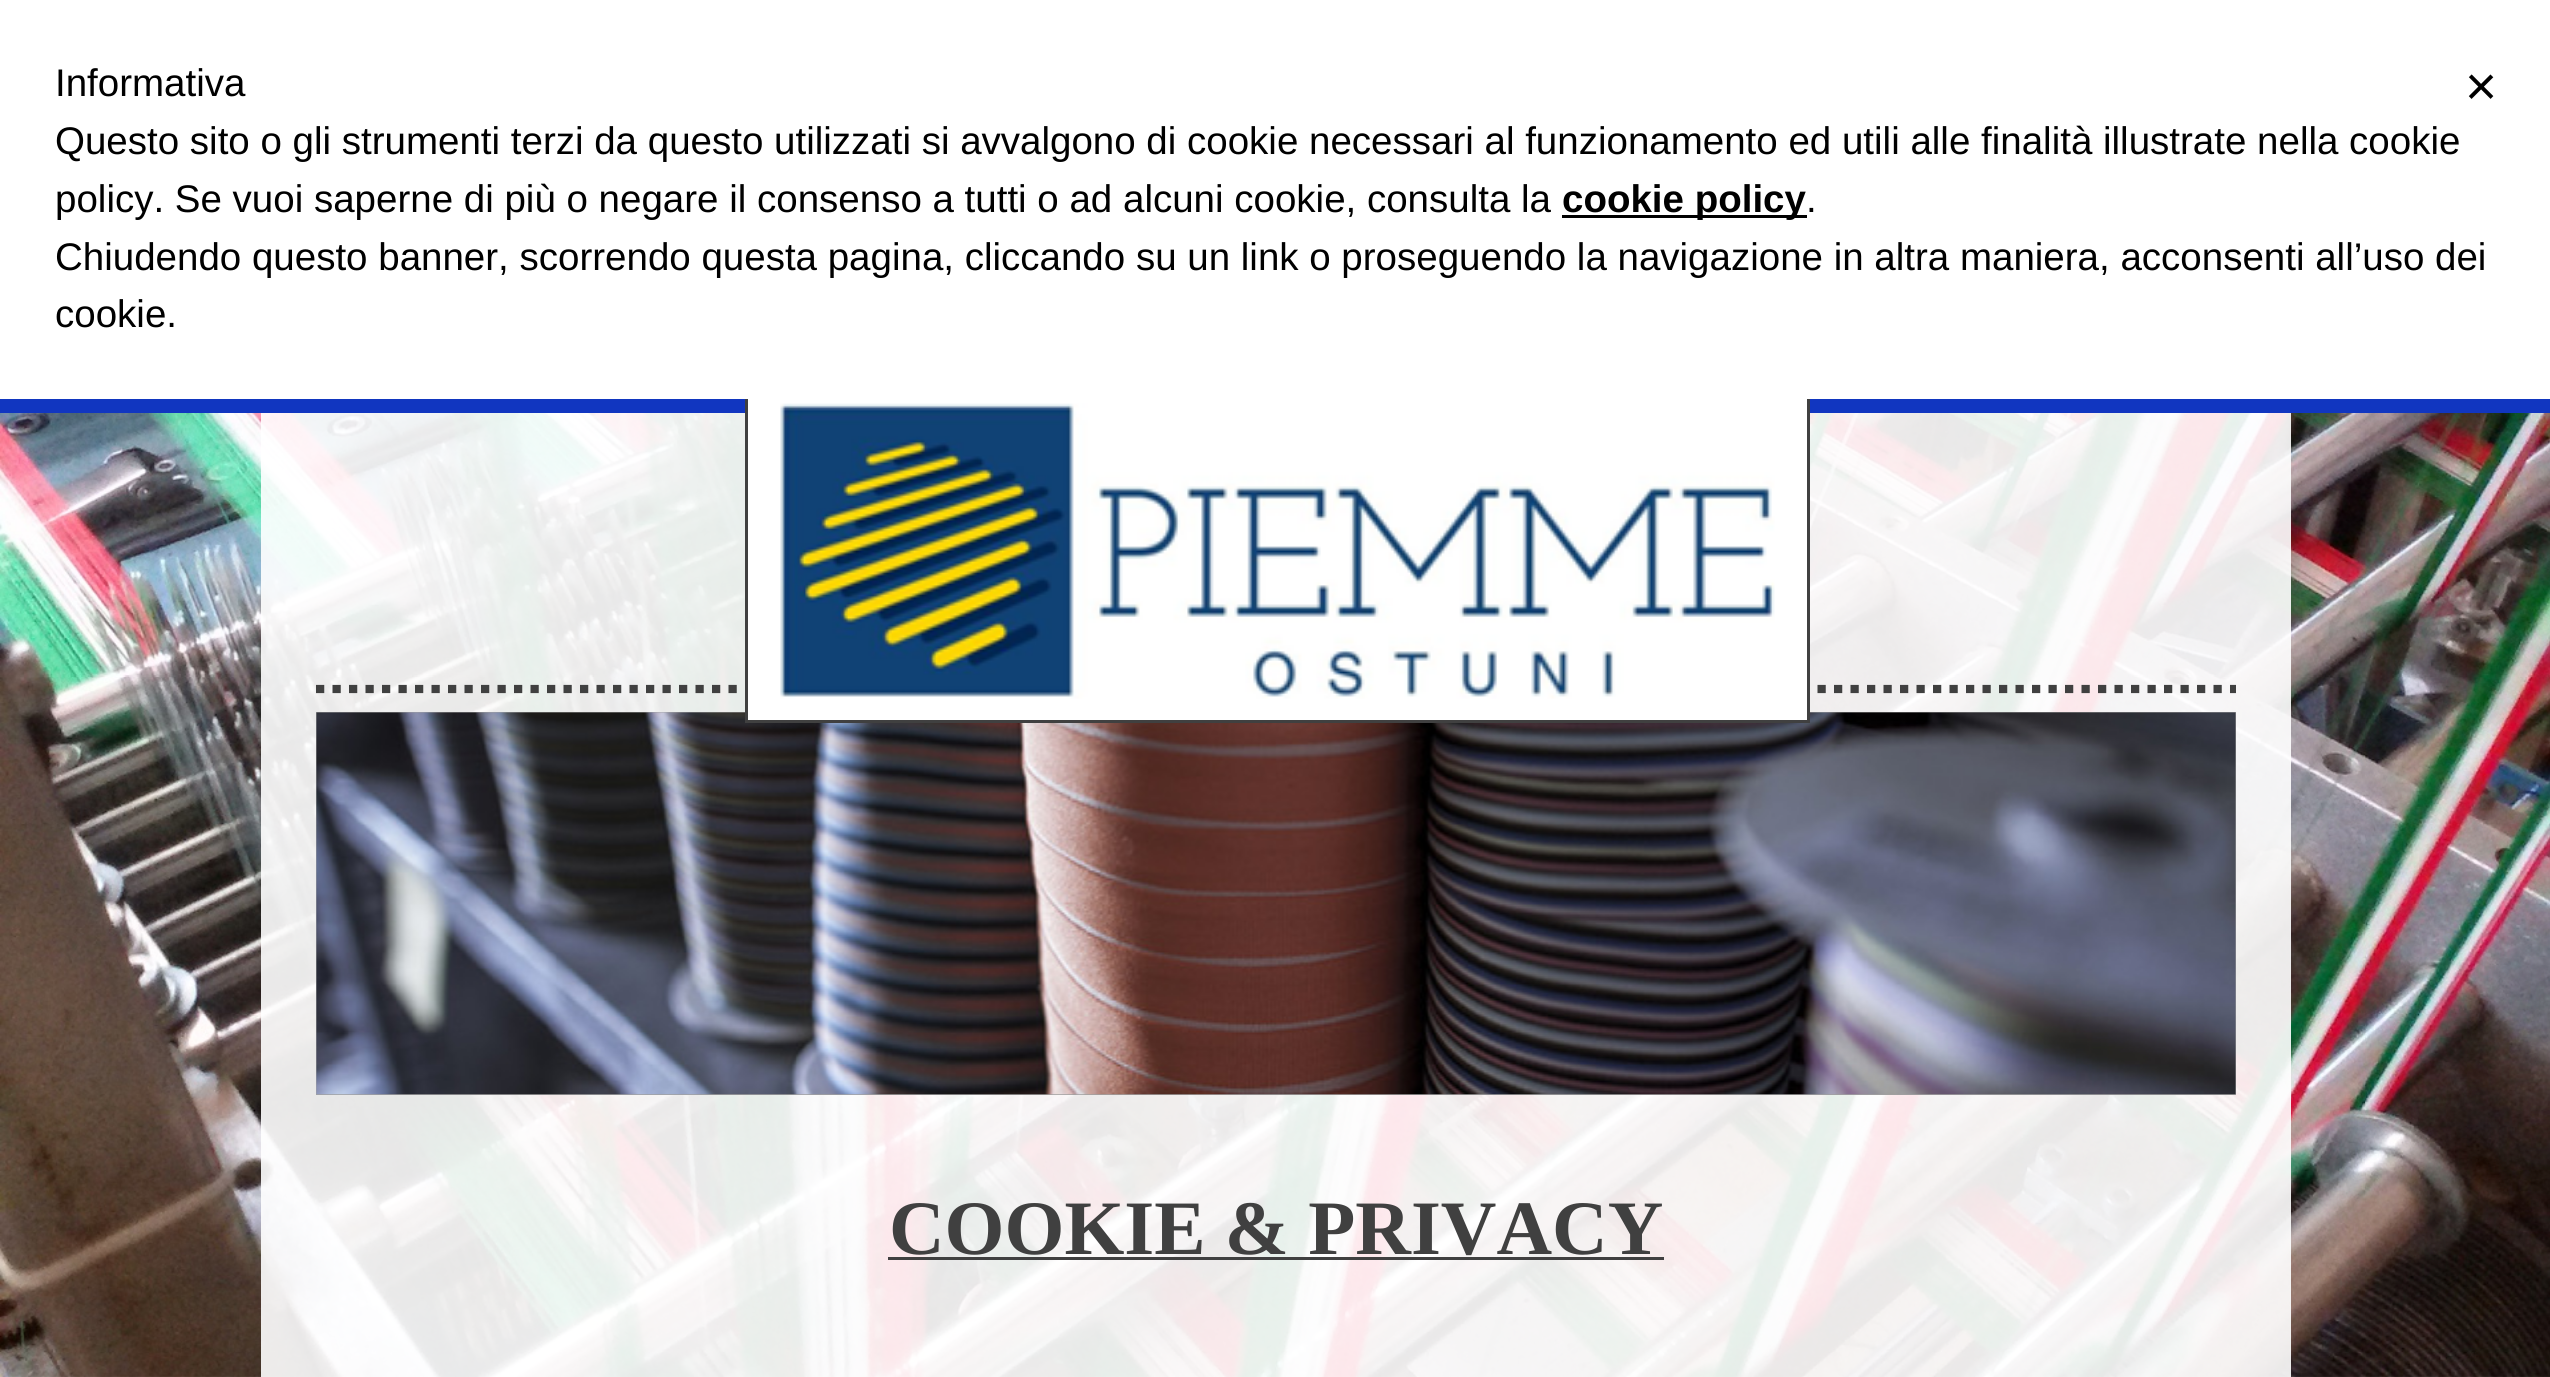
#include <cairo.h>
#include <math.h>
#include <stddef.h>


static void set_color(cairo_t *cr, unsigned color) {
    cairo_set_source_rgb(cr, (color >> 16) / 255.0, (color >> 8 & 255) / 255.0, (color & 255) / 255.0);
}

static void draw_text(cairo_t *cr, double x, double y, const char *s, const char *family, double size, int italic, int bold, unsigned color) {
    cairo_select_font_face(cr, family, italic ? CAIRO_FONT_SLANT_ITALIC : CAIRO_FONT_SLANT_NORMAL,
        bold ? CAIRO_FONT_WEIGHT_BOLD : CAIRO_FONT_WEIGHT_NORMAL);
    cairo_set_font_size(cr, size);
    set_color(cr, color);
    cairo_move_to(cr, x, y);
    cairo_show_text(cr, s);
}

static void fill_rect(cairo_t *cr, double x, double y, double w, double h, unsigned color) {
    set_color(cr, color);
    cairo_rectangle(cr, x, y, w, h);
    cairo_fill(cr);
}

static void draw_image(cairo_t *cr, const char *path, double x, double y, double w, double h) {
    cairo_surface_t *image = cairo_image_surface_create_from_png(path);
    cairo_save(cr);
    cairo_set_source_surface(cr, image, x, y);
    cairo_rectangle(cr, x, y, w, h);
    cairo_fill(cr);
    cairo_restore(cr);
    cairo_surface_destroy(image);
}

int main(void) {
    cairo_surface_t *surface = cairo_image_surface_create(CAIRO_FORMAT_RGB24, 2550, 1377);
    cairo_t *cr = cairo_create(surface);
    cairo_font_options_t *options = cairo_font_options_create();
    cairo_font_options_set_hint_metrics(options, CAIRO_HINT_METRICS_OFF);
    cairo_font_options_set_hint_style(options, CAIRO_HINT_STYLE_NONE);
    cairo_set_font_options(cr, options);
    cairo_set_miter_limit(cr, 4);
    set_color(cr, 0xFFFFFF);
    cairo_paint(cr);
    draw_image(cr, "assets/img1.png", 0, 413, 2550, 964);
    fill_rect(cr, 0, 399, 2550, 14, 0x1136C0);
    cairo_set_source_rgba(cr, 1, 1, 1, 0.9);
    cairo_rectangle(cr, 261, 413, 2030, 964);
    cairo_fill(cr);
    cairo_new_path(cr);
    cairo_move_to(cr, 316, 689);
    cairo_line_to(cr, 2236, 689);
    set_color(cr, 0x404040);
    cairo_set_line_width(cr, 8.2);
    cairo_set_dash(cr, (double[]){8.25, 8.25}, 2, 0);
    cairo_stroke(cr);
    fill_rect(cr, 316, 712, 1920, 383, 0xA0A0A0);
    draw_image(cr, "assets/img3.png", 316, 712, 1920, 383);
    fill_rect(cr, 748, 399, 1059, 321, 0xFFFFFF);
    cairo_rectangle(cr, 746.5, 370.5, 1062, 351);
    set_color(cr, 0x404040);
    cairo_set_line_width(cr, 3);
    cairo_set_dash(cr, NULL, 0, 0);
    cairo_stroke(cr);
    fill_rect(cr, 745, 369, 1065, 30, 0xFFFFFF);
    draw_text(cr, 55, 96, "Informativa", "Liberation Sans", 38.5, 0, 0, 0x000000);
    draw_text(cr, 55, 154, "Questo sito o gli strumenti terzi da questo utilizzati si avvalgono di cookie necessari al funzionamento ed utili alle finalità illustrate nella cookie", "Liberation Sans", 38.5, 0, 0, 0x000000);
    draw_text(cr, 55, 212, "policy. Se vuoi saperne di più o negare il consenso a tutti o ad alcuni cookie, consulta la", "Liberation Sans", 38.5, 0, 0, 0x000000);
    fill_rect(cr, 1562, 215, 245, 3, 0x000000);
    draw_text(cr, 1562, 212, "cookie policy", "Liberation Sans", 38.5, 0, 1, 0x000000);
    draw_text(cr, 1806, 212, ".", "Liberation Sans", 38.5, 0, 0, 0x000000);
    draw_text(cr, 55, 270, "Chiudendo questo banner, scorrendo questa pagina, cliccando su un link o proseguendo la navigazione in altra maniera, acconsenti all’uso dei", "Liberation Sans", 38.5, 0, 0, 0x000000);
    draw_text(cr, 55, 327, "cookie.", "Liberation Sans", 38.5, 0, 0, 0x000000);
    draw_text(cr, 2465, 105, "×", "Liberation Sans", 55, 0, 0, 0x000000);
    draw_image(cr, "assets/img2.png", 780, 403, 995, 296);
    draw_text(cr, 889, 1254, "COOKIE & PRIVACY", "Liberation Serif", 77, 0, 1, 0x404040);
    fill_rect(cr, 888, 1257, 776, 3, 0x404040);
    cairo_surface_write_to_png(surface, "output.png");
    cairo_font_options_destroy(options);
    cairo_destroy(cr);
    cairo_surface_destroy(surface);
    return 0;
}
